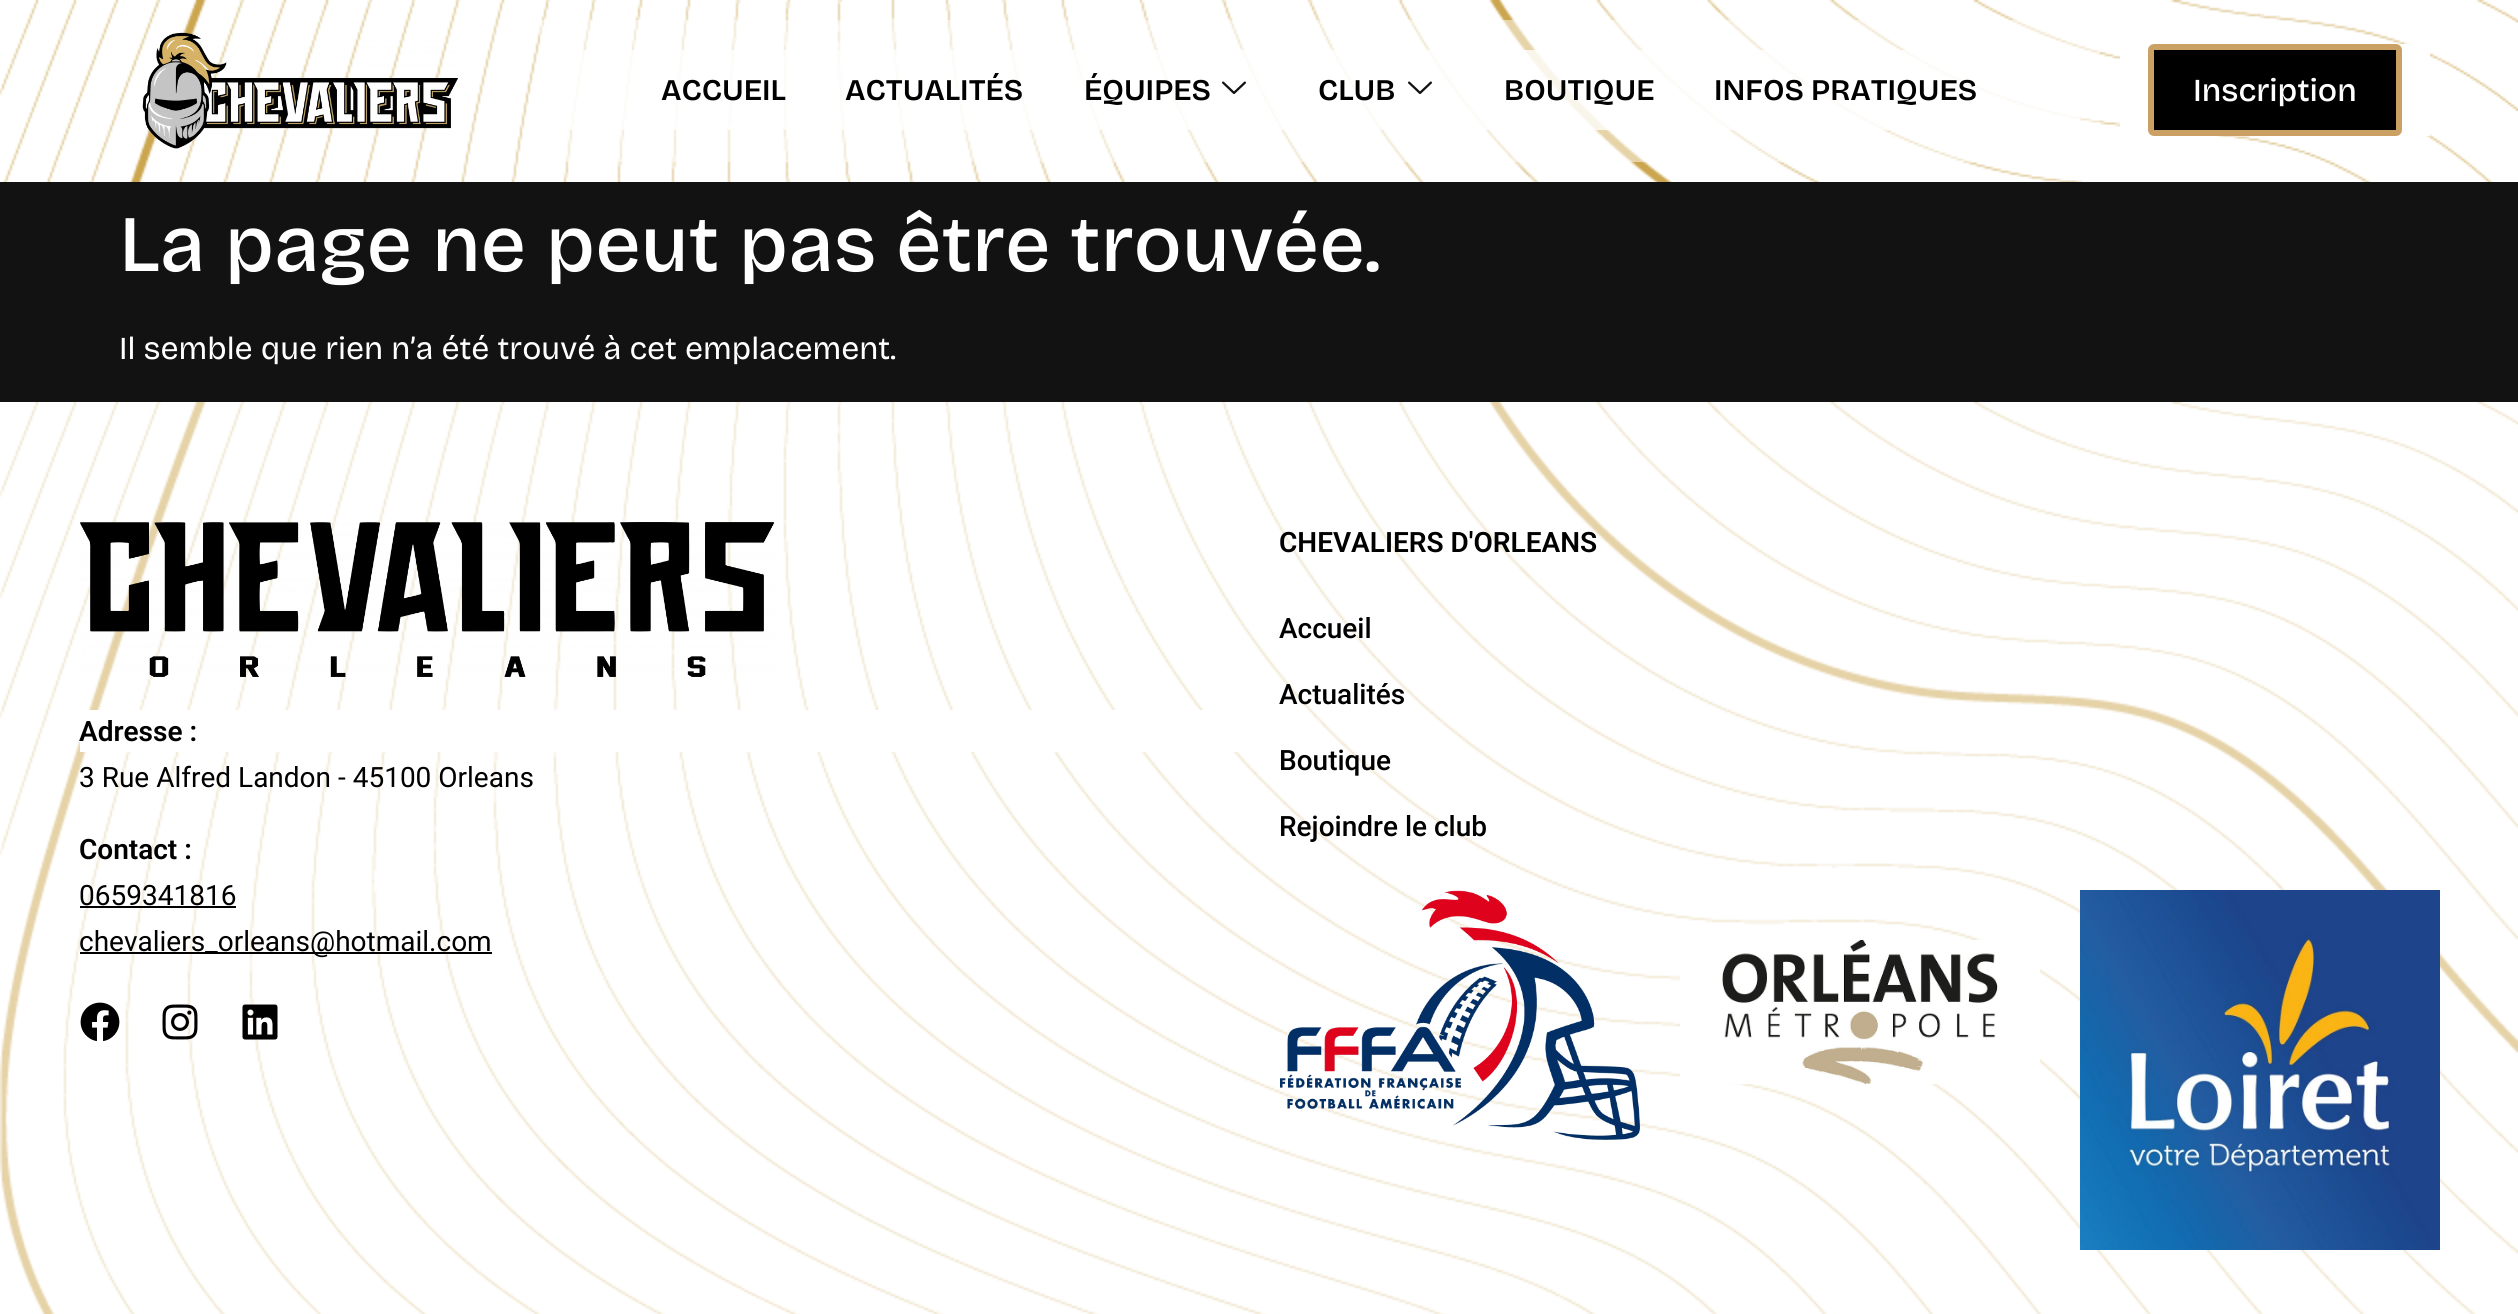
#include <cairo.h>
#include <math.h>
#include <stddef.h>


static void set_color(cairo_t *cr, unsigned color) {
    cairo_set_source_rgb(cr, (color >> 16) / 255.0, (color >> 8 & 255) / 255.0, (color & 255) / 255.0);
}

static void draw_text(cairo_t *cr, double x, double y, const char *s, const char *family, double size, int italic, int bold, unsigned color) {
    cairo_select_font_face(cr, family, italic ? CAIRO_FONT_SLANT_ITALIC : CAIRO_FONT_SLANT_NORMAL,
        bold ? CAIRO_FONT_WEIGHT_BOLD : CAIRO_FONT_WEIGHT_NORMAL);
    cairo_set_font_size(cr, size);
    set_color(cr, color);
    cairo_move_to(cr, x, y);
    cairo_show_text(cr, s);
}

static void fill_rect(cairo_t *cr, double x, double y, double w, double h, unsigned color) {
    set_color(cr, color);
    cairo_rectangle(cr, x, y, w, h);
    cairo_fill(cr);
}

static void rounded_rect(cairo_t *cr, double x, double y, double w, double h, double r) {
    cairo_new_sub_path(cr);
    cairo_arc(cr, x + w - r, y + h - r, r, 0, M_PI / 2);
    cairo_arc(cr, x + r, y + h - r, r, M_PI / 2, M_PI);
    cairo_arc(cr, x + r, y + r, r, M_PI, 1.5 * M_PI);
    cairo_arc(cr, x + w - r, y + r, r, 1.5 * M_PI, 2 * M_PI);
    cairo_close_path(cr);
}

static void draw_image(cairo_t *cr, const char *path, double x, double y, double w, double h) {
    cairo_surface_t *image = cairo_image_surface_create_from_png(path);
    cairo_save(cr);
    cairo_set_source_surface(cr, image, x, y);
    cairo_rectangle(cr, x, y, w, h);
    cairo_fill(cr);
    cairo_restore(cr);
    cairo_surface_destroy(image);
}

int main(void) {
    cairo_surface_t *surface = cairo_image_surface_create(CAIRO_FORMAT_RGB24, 2518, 1314);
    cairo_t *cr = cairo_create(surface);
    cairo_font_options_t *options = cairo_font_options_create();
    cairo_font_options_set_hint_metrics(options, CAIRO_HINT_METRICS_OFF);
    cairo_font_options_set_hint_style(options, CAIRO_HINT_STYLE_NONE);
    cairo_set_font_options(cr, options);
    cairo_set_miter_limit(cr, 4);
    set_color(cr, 0x121212);
    cairo_paint(cr);
    fill_rect(cr, 0, 0, 3, 182, 0xFFFFFF);
    draw_image(cr, "assets/img1.png", 0, 0, 2518, 182);
    draw_image(cr, "assets/img2.png", 142, 32, 316, 117);
    cairo_set_source_rgba(cr, 1, 1, 1, 0.5);
    cairo_rectangle(cr, 540, 20, 1560, 142);
    cairo_fill(cr);
    cairo_set_source_rgba(cr, 1, 1, 1, 0.77);
    cairo_rectangle(cr, 569, 50, 1511, 80);
    cairo_fill(cr);
    draw_text(cr, 661, 100, "ACCUEIL", "Bricolage Grotesque SemiBold", 30, 0, 0, 0x000000);
    draw_text(cr, 845, 100, "ACTUALITÉS", "Bricolage Grotesque SemiBold", 30, 0, 0, 0x000000);
    draw_text(cr, 1084, 100, "ÉQUIPES", "Bricolage Grotesque SemiBold", 30, 0, 0, 0x000000);
    draw_image(cr, "assets/img3.png", 1222, 81, 24, 13);
    draw_text(cr, 1318, 100, "CLUB", "Bricolage Grotesque SemiBold", 30, 0, 0, 0x000000);
    draw_image(cr, "assets/img3.png", 1408, 81, 24, 13);
    draw_text(cr, 1504, 100, "BOUTIQUE", "Bricolage Grotesque SemiBold", 30, 0, 0, 0x000000);
    draw_text(cr, 1714, 100, "INFOS PRATIQUES", "Bricolage Grotesque SemiBold", 30, 0, 0, 0x000000);
    fill_rect(cr, 2120, 44, 310, 92, 0xFFFFFF);
    set_color(cr, 0x000000);
    rounded_rect(cr, 2151, 47, 248, 86, 3);
    cairo_fill_preserve(cr);
    set_color(cr, 0xCBA064);
    cairo_set_line_width(cr, 6);
    cairo_stroke(cr);
    draw_text(cr, 2193, 101, "Inscription", "Bricolage Grotesque Medium", 32, 0, 0, 0xFFFFFF);
    draw_text(cr, 119, 271, "La page ne peut pas être trouvée.", "Bricolage Grotesque Medium", 80, 0, 0, 0xFFFFFF);
    draw_text(cr, 119, 359, "Il semble que rien n’a été trouvé à cet emplacement.", "Bricolage Grotesque", 32, 0, 0, 0xFFFFFF);
    fill_rect(cr, 0, 402, 3, 912, 0xFFFFFF);
    draw_image(cr, "assets/img4.png", 0, 402, 2518, 912);
    draw_image(cr, "assets/img5.png", 80, 522, 695, 155);
    fill_rect(cr, 80, 710, 1159, 42, 0xFFFFFF);
    draw_text(cr, 79, 741, "Adresse :", "Roboto SemiBold", 28, 0, 0, 0x000000);
    draw_text(cr, 79, 787, "3 Rue Alfred Landon - 45100 Orleans", "Roboto", 28, 0, 0, 0x000000);
    draw_text(cr, 79, 859, "Contact :", "Roboto SemiBold", 28, 0, 0, 0x000000);
    draw_text(cr, 79, 905, "0659341816", "Roboto", 28, 0, 0, 0x000000);
    fill_rect(cr, 80, 906, 156, 2, 0x000000);
    fill_rect(cr, 80, 952, 412, 2, 0x000000);
    draw_text(cr, 79, 951, "chevaliers_orleans@hotmail.com", "Roboto", 28, 0, 0, 0x000000);
    draw_image(cr, "assets/img6.png", 80, 1002, 40, 40);
    draw_image(cr, "assets/img7.png", 162, 1004, 36, 36);
    draw_image(cr, "assets/img8.png", 242, 1004, 36, 36);
    draw_text(cr, 1279, 552, "CHEVALIERS D'ORLEANS", "Roboto SemiBold", 28, 0, 0, 0x000000);
    draw_text(cr, 1279, 638, "Accueil", "Roboto Medium", 28, 0, 0, 0x000000);
    draw_text(cr, 1279, 704, "Actualités", "Roboto Medium", 28, 0, 0, 0x000000);
    draw_text(cr, 1279, 770, "Boutique", "Roboto Medium", 28, 0, 0, 0x000000);
    draw_text(cr, 1279, 836, "Rejoindre le club", "Roboto Medium", 28, 0, 0, 0x000000);
    draw_image(cr, "assets/img9.png", 1280, 890, 360, 250);
    draw_image(cr, "assets/img10.png", 1680, 940, 360, 144);
    draw_image(cr, "assets/img11.png", 2080, 890, 360, 360);
    cairo_surface_write_to_png(surface, "output.png");
    cairo_font_options_destroy(options);
    cairo_destroy(cr);
    cairo_surface_destroy(surface);
    return 0;
}
